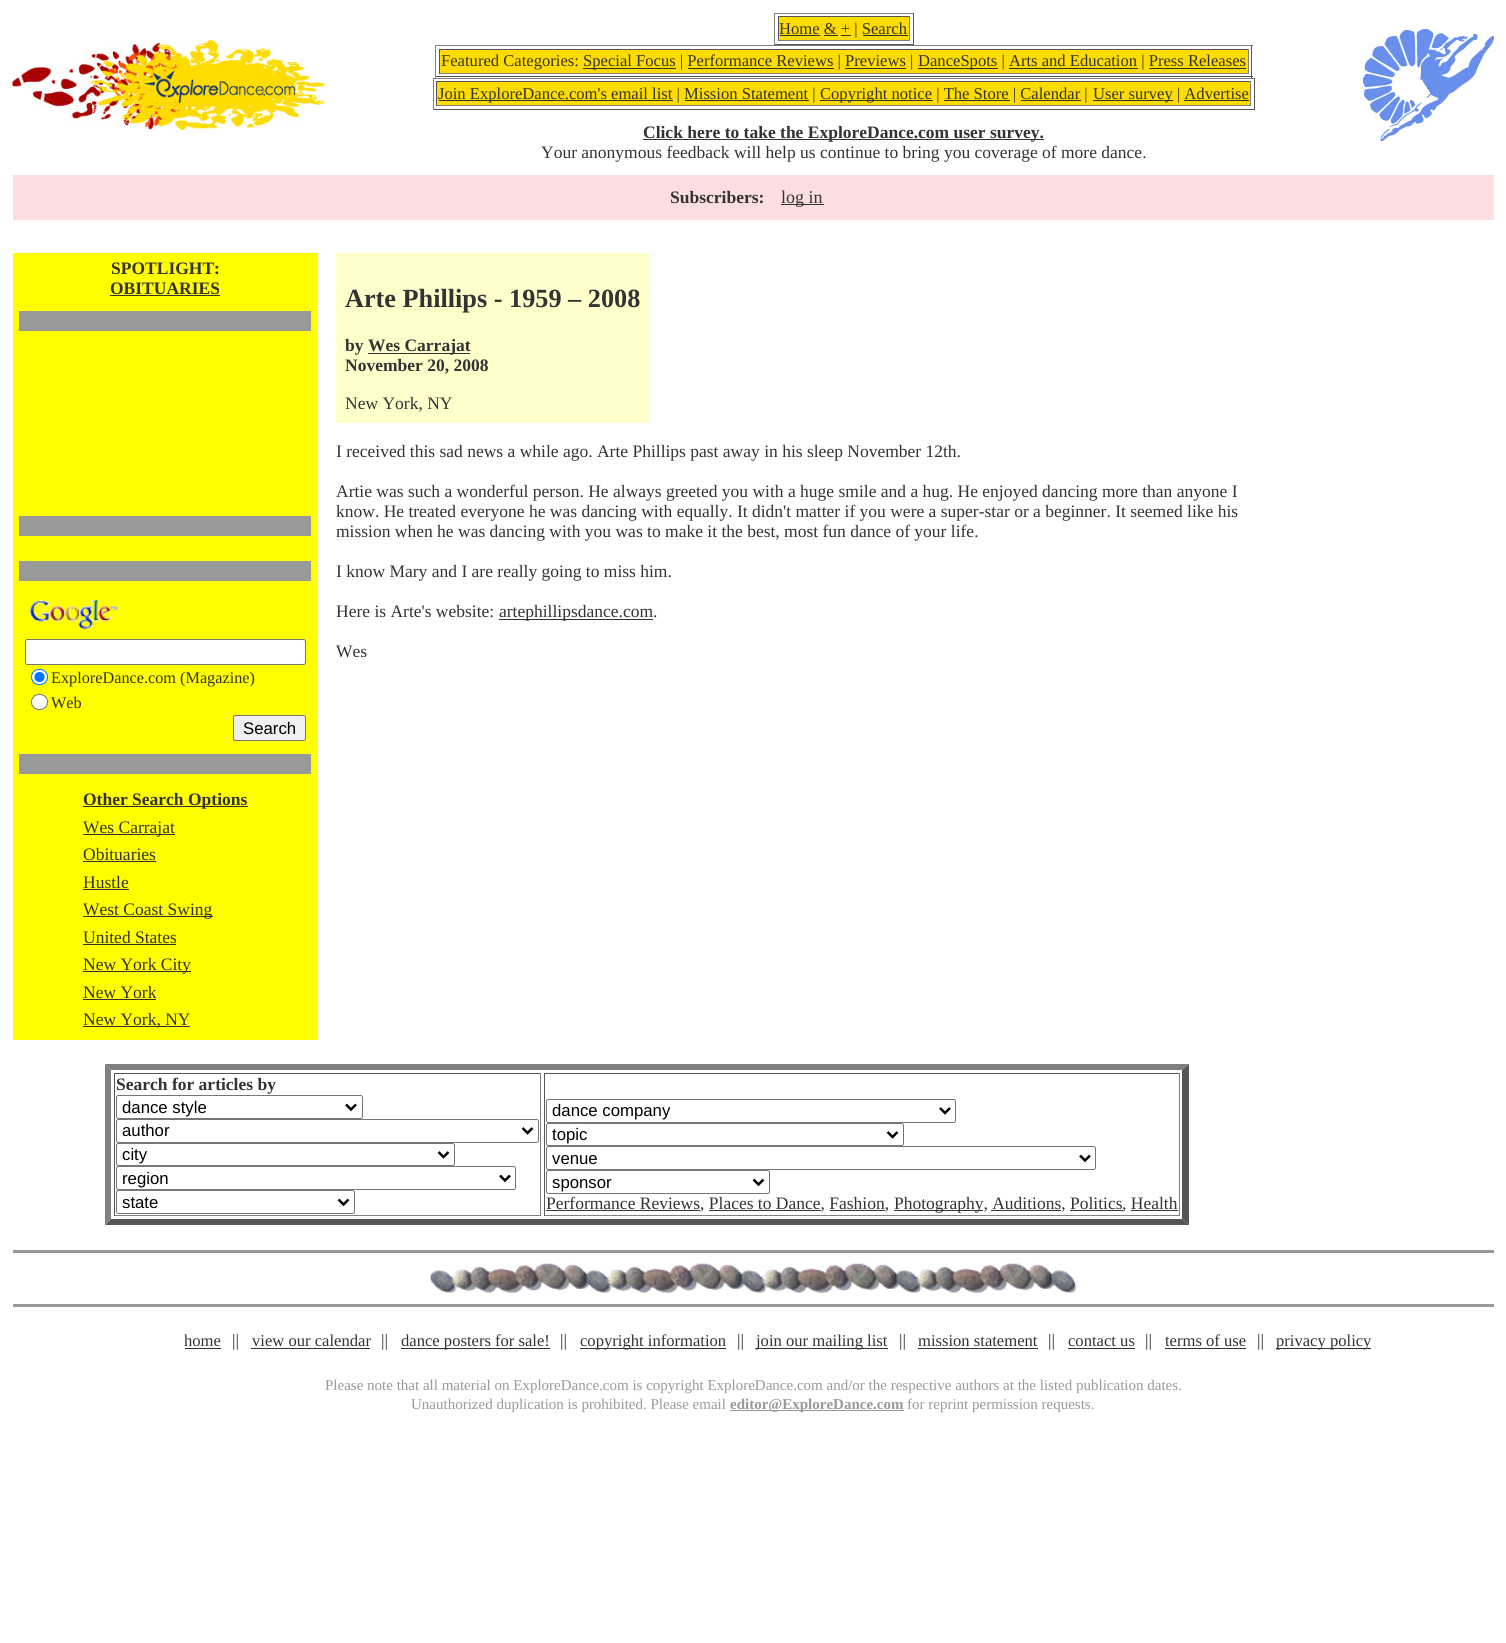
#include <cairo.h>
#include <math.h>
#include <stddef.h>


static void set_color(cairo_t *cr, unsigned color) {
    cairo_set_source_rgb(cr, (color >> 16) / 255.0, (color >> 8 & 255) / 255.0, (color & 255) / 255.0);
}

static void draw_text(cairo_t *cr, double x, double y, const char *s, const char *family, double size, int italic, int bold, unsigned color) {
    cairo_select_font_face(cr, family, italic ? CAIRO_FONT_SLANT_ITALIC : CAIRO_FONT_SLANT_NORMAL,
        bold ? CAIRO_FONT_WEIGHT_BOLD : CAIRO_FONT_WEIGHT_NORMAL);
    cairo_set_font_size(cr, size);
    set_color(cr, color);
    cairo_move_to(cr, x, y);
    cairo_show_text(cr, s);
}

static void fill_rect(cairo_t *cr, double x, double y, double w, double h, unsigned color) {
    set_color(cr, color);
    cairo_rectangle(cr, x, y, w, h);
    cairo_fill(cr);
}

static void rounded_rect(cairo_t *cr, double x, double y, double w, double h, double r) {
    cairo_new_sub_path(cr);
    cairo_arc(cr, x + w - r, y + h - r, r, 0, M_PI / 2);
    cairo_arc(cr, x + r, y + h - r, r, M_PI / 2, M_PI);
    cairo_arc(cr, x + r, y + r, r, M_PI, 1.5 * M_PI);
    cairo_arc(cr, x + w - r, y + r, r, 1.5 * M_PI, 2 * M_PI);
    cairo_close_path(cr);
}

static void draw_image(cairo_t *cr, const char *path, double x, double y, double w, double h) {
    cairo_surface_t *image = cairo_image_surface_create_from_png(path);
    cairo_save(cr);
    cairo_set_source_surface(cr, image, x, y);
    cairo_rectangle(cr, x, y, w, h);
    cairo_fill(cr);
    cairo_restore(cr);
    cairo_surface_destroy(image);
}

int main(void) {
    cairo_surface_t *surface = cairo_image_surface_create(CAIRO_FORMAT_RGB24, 1506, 1643);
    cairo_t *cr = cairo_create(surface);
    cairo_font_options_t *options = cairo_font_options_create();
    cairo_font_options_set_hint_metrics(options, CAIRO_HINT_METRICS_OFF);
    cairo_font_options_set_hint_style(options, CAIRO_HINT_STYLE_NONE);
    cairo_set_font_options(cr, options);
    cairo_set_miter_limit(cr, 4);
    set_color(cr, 0xFFFFFF);
    cairo_paint(cr);
    draw_image(cr, "assets/img1.png", 12, 40, 313, 90);
    fill_rect(cr, 774, 13, 140, 1, 0x808080);
    fill_rect(cr, 913, 13, 1, 32, 0x555555);
    fill_rect(cr, 774, 44, 140, 1, 0x555555);
    fill_rect(cr, 774, 13, 1, 32, 0x808080);
    fill_rect(cr, 779, 17, 130, 23, 0xFEDC00);
    fill_rect(cr, 778, 16, 132, 1, 0x555555);
    fill_rect(cr, 909, 16, 1, 25, 0x808080);
    fill_rect(cr, 778, 40, 132, 1, 0x808080);
    fill_rect(cr, 778, 16, 1, 25, 0x555555);
    fill_rect(cr, 780, 35, 40, 1, 0x333333);
    draw_text(cr, 779, 34, "Home & + | Search", "Liberation Serif", 16.6, 0, 0, 0x333333);
    fill_rect(cr, 824, 35, 14, 1, 0x333333);
    fill_rect(cr, 841, 35, 10, 1, 0x333333);
    fill_rect(cr, 863, 35, 45, 1, 0x333333);
    fill_rect(cr, 435, 45, 818, 1, 0x808080);
    fill_rect(cr, 1251, 45, 1, 33, 0x555555);
    fill_rect(cr, 435, 76, 818, 1, 0x555555);
    fill_rect(cr, 435, 45, 1, 33, 0x808080);
    fill_rect(cr, 440, 50, 808, 23, 0xFEDC00);
    fill_rect(cr, 439, 49, 810, 1, 0x555555);
    fill_rect(cr, 1248, 49, 1, 25, 0x808080);
    fill_rect(cr, 439, 73, 810, 1, 0x808080);
    fill_rect(cr, 439, 49, 1, 25, 0x555555);
    draw_text(cr, 441, 66, "Featured Categories:", "Liberation Serif", 16.6, 0, 0, 0x333333);
    fill_rect(cr, 583, 68, 93, 1, 0x333333);
    draw_text(cr, 583, 66, "Special Focus | Performance Reviews | Previews |", "Liberation Serif", 16.6, 0, 0, 0x333333);
    fill_rect(cr, 918, 68, 80, 1, 0x333333);
    draw_text(cr, 918, 66, "DanceSpots | Arts and Education | Press Releases", "Liberation Serif", 16.6, 0, 0, 0x333333);
    fill_rect(cr, 688, 68, 146, 1, 0x333333);
    fill_rect(cr, 845, 68, 61, 1, 0x333333);
    fill_rect(cr, 1009, 68, 129, 1, 0x333333);
    fill_rect(cr, 1149, 68, 97, 1, 0x333333);
    fill_rect(cr, 433, 78, 822, 1, 0x808080);
    fill_rect(cr, 1254, 78, 1, 32, 0x555555);
    fill_rect(cr, 433, 109, 822, 1, 0x555555);
    fill_rect(cr, 433, 78, 1, 32, 0x808080);
    fill_rect(cr, 437, 82, 813, 23, 0xFEDC00);
    fill_rect(cr, 436, 81, 815, 1, 0x555555);
    fill_rect(cr, 1250, 81, 1, 25, 0x808080);
    fill_rect(cr, 436, 105, 815, 1, 0x808080);
    fill_rect(cr, 436, 81, 1, 25, 0x555555);
    fill_rect(cr, 439, 100, 234, 1, 0x333333);
    draw_text(cr, 438, 99, "Join ExploreDance.com's email list | Mission Statement |", "Liberation Serif", 16.6, 0, 0, 0x333333);
    fill_rect(cr, 820, 100, 113, 1, 0x333333);
    draw_text(cr, 820, 99, "Copyright notice | The Store | Calendar |", "Liberation Serif", 16.6, 0, 0, 0x333333);
    fill_rect(cr, 1093, 100, 80, 1, 0x333333);
    draw_text(cr, 1093, 99, "User survey | Advertise", "Liberation Serif", 16.6, 0, 0, 0x333333);
    fill_rect(cr, 685, 100, 124, 1, 0x333333);
    fill_rect(cr, 944, 100, 66, 1, 0x333333);
    fill_rect(cr, 1021, 100, 60, 1, 0x333333);
    fill_rect(cr, 1184, 100, 65, 1, 0x333333);
    fill_rect(cr, 643, 139, 401, 1, 0x333333);
    draw_text(cr, 643, 138, "Click here to take the ExploreDance.com user survey.", "Liberation Serif", 17.5, 0, 1, 0x333333);
    draw_text(cr, 541, 158, "Your anonymous feedback will help us continue to bring you coverage of more dance.", "Liberation Serif", 17.5, 0, 0, 0x333333);
    draw_image(cr, "assets/img2.png", 1363, 29, 131, 112);
    fill_rect(cr, 13, 175, 1481, 45, 0xFCDEDE);
    draw_text(cr, 670, 203, "Subscribers:", "Liberation Serif", 17.5, 0, 1, 0x333333);
    fill_rect(cr, 781, 204, 43, 1, 0x333333);
    draw_text(cr, 781, 203, "log in", "Liberation Serif", 18, 0, 0, 0x333333);
    fill_rect(cr, 13, 253, 305, 787, 0xFFFF00);
    draw_text(cr, 111, 274, "SPOTLIGHT:", "Liberation Serif", 17.5, 0, 1, 0x333333);
    draw_text(cr, 110, 294, "OBITUARIES", "Liberation Serif", 17.5, 0, 1, 0x333333);
    fill_rect(cr, 110, 295, 110, 1, 0x333333);
    fill_rect(cr, 19, 311, 292, 20, 0x999999);
    fill_rect(cr, 19, 516, 292, 20, 0x999999);
    fill_rect(cr, 19, 561, 292, 20, 0x999999);
    draw_image(cr, "assets/img3.png", 29, 599, 89, 30);
    set_color(cr, 0xFFFFFF);
    rounded_rect(cr, 25.5, 639.5, 280, 25, 2);
    cairo_fill_preserve(cr);
    set_color(cr, 0x767676);
    cairo_set_line_width(cr, 1);
    cairo_stroke(cr);
    set_color(cr, 0xFFFFFF);
    rounded_rect(cr, 31.5, 669.5, 16, 15, 7.5);
    cairo_fill_preserve(cr);
    set_color(cr, 0x0075FF);
    cairo_stroke(cr);
    cairo_arc(cr, 39.5, 677, 5, 0, 2 * M_PI);
    cairo_fill(cr);
    draw_text(cr, 51, 683, "ExploreDance.com (Magazine)", "Liberation Serif", 16.25, 0, 0, 0x333333);
    set_color(cr, 0xFFFFFF);
    rounded_rect(cr, 31.5, 694.5, 16, 15, 7.5);
    cairo_fill_preserve(cr);
    set_color(cr, 0x767676);
    cairo_stroke(cr);
    draw_text(cr, 51, 708, "Web", "Liberation Serif", 16.25, 0, 0, 0x333333);
    set_color(cr, 0xEFEFEF);
    rounded_rect(cr, 233.5, 715.5, 72, 25, 2);
    cairo_fill_preserve(cr);
    set_color(cr, 0x767676);
    cairo_stroke(cr);
    draw_text(cr, 243, 734, "Search", "Liberation Sans", 16.75, 0, 0, 0x000000);
    fill_rect(cr, 19, 754, 292, 20, 0x999999);
    fill_rect(cr, 83, 806, 165, 1, 0x333333);
    draw_text(cr, 83, 805, "Other Search Options", "Liberation Serif", 17.5, 0, 1, 0x333333);
    fill_rect(cr, 83, 834, 92, 1, 0x333333);
    draw_text(cr, 83, 833, "Wes Carrajat", "Liberation Serif", 17.5, 0, 0, 0x333333);
    draw_text(cr, 83, 860, "Obituaries", "Liberation Serif", 17.5, 0, 0, 0x333333);
    fill_rect(cr, 83, 861, 73, 1, 0x333333);
    draw_text(cr, 83, 888, "Hustle", "Liberation Serif", 17.5, 0, 0, 0x333333);
    fill_rect(cr, 83, 889, 46, 1, 0x333333);
    fill_rect(cr, 83, 916, 130, 1, 0x333333);
    draw_text(cr, 83, 915, "West Coast Swing", "Liberation Serif", 17.5, 0, 0, 0x333333);
    draw_text(cr, 83, 943, "United States", "Liberation Serif", 17.5, 0, 0, 0x333333);
    fill_rect(cr, 83, 944, 93, 1, 0x333333);
    fill_rect(cr, 83, 971, 108, 1, 0x333333);
    draw_text(cr, 83, 970, "New York City", "Liberation Serif", 17.5, 0, 0, 0x333333);
    draw_text(cr, 83, 998, "New York", "Liberation Serif", 17.5, 0, 0, 0x333333);
    fill_rect(cr, 83, 999, 73, 1, 0x333333);
    fill_rect(cr, 83, 1026, 107, 1, 0x333333);
    draw_text(cr, 83, 1025, "New York, NY", "Liberation Serif", 17.5, 0, 0, 0x333333);
    fill_rect(cr, 336, 253, 313, 170, 0xFFFFCC);
    draw_text(cr, 345, 307, "Arte Phillips - 1959 – 2008", "Liberation Serif", 26.25, 0, 1, 0x333333);
    draw_text(cr, 345, 351, "by", "Liberation Serif", 17.5, 0, 1, 0x333333);
    fill_rect(cr, 368, 353, 102, 1, 0x333333);
    draw_text(cr, 368, 351, "Wes Carrajat", "Liberation Serif", 17.5, 0, 1, 0x333333);
    draw_text(cr, 345, 371, "November 20, 2008", "Liberation Serif", 17.5, 0, 1, 0x333333);
    draw_text(cr, 345, 409, "New York, NY", "Liberation Serif", 17.5, 0, 0, 0x333333);
    draw_text(cr, 336, 457, "I received this sad news a while ago. Arte Phillips past away in his sleep November 12th.", "Liberation Serif", 17.5, 0, 0, 0x333333);
    draw_text(cr, 336, 497, "Artie was such a wonderful person. He always greeted you with a huge smile and a hug. He enjoyed dancing more than anyone I", "Liberation Serif", 17.5, 0, 0, 0x333333);
    draw_text(cr, 336, 517, "know. He treated everyone he was dancing with equally. It didn't matter if you were a super-star or a beginner. It seemed like his", "Liberation Serif", 17.5, 0, 0, 0x333333);
    draw_text(cr, 336, 537, "mission when he was dancing with you was to make it the best, most fun dance of your life.", "Liberation Serif", 17.5, 0, 0, 0x333333);
    draw_text(cr, 336, 577, "I know Mary and I are really going to miss him.", "Liberation Serif", 17.5, 0, 0, 0x333333);
    draw_text(cr, 336, 617, "Here is Arte's website:", "Liberation Serif", 17.5, 0, 0, 0x333333);
    fill_rect(cr, 499, 619, 154, 1, 0x333333);
    draw_text(cr, 499, 617, "artephillipsdance.com.", "Liberation Serif", 17.5, 0, 0, 0x333333);
    draw_text(cr, 336, 657, "Wes", "Liberation Serif", 17.5, 0, 0, 0x333333);
    set_color(cr, 0x808080);
    cairo_new_path(cr);
    cairo_move_to(cr, 105, 1064);
    cairo_line_to(cr, 1189, 1064);
    cairo_line_to(cr, 1182, 1070);
    cairo_line_to(cr, 111, 1070);
    cairo_close_path(cr);
    cairo_fill(cr);
    set_color(cr, 0x555555);
    cairo_new_path(cr);
    cairo_move_to(cr, 1189, 1064);
    cairo_line_to(cr, 1189, 1225);
    cairo_line_to(cr, 1182, 1219);
    cairo_line_to(cr, 1182, 1070);
    cairo_close_path(cr);
    cairo_fill(cr);
    cairo_new_path(cr);
    cairo_move_to(cr, 1189, 1225);
    cairo_line_to(cr, 105, 1225);
    cairo_line_to(cr, 111, 1219);
    cairo_line_to(cr, 1182, 1219);
    cairo_close_path(cr);
    cairo_fill(cr);
    set_color(cr, 0x808080);
    cairo_new_path(cr);
    cairo_move_to(cr, 105, 1225);
    cairo_line_to(cr, 105, 1064);
    cairo_line_to(cr, 111, 1070);
    cairo_line_to(cr, 111, 1219);
    cairo_close_path(cr);
    cairo_fill(cr);
    fill_rect(cr, 114, 1073, 427, 1, 0x555555);
    fill_rect(cr, 540, 1073, 1, 143, 0x808080);
    fill_rect(cr, 114, 1215, 427, 1, 0x808080);
    fill_rect(cr, 114, 1073, 1, 143, 0x555555);
    draw_text(cr, 116, 1090, "Search for articles by", "Liberation Serif", 17.5, 0, 1, 0x333333);
    rounded_rect(cr, 116.5, 1095.5, 246, 23, 2);
    set_color(cr, 0x767676);
    cairo_stroke(cr);
    cairo_new_path(cr);
    cairo_move_to(cr, 346, 1104.5);
    cairo_line_to(cr, 351, 1109.5);
    cairo_line_to(cr, 356, 1104.5);
    set_color(cr, 0x000000);
    cairo_set_line_width(cr, 2.5);
    cairo_stroke(cr);
    draw_text(cr, 122, 1113, "dance style", "Liberation Sans", 16.75, 0, 0, 0x000000);
    rounded_rect(cr, 116.5, 1119.5, 422, 23, 2);
    set_color(cr, 0x767676);
    cairo_set_line_width(cr, 1);
    cairo_stroke(cr);
    cairo_new_path(cr);
    cairo_move_to(cr, 522.5, 1128);
    cairo_line_to(cr, 527.5, 1133);
    cairo_line_to(cr, 532.5, 1128);
    set_color(cr, 0x000000);
    cairo_set_line_width(cr, 2.5);
    cairo_stroke(cr);
    draw_text(cr, 122, 1136, "author", "Liberation Sans", 16.75, 0, 0, 0x000000);
    rounded_rect(cr, 116.5, 1143.5, 338, 22, 2);
    set_color(cr, 0x767676);
    cairo_set_line_width(cr, 1);
    cairo_stroke(cr);
    cairo_new_path(cr);
    cairo_move_to(cr, 438.5, 1152);
    cairo_line_to(cr, 443.5, 1157);
    cairo_line_to(cr, 448.5, 1152);
    set_color(cr, 0x000000);
    cairo_set_line_width(cr, 2.5);
    cairo_stroke(cr);
    draw_text(cr, 122, 1160, "city", "Liberation Sans", 16.75, 0, 0, 0x000000);
    rounded_rect(cr, 116.5, 1166.5, 399, 23, 2);
    set_color(cr, 0x767676);
    cairo_set_line_width(cr, 1);
    cairo_stroke(cr);
    cairo_new_path(cr);
    cairo_move_to(cr, 500, 1175.5);
    cairo_line_to(cr, 505, 1180.5);
    cairo_line_to(cr, 510, 1175.5);
    set_color(cr, 0x000000);
    cairo_set_line_width(cr, 2.5);
    cairo_stroke(cr);
    draw_text(cr, 122, 1184, "region", "Liberation Sans", 16.75, 0, 0, 0x000000);
    rounded_rect(cr, 116.5, 1190.5, 238, 23, 2);
    set_color(cr, 0x767676);
    cairo_set_line_width(cr, 1);
    cairo_stroke(cr);
    cairo_new_path(cr);
    cairo_move_to(cr, 338.5, 1199.5);
    cairo_line_to(cr, 343.5, 1204.5);
    cairo_line_to(cr, 348.5, 1199.5);
    set_color(cr, 0x000000);
    cairo_set_line_width(cr, 2.5);
    cairo_stroke(cr);
    draw_text(cr, 122, 1208, "state", "Liberation Sans", 16.75, 0, 0, 0x000000);
    fill_rect(cr, 544, 1073, 636, 1, 0x555555);
    fill_rect(cr, 1179, 1073, 1, 143, 0x808080);
    fill_rect(cr, 544, 1215, 636, 1, 0x808080);
    fill_rect(cr, 544, 1073, 1, 143, 0x555555);
    rounded_rect(cr, 546.5, 1099.5, 409, 23, 2);
    set_color(cr, 0x767676);
    cairo_set_line_width(cr, 1);
    cairo_stroke(cr);
    cairo_new_path(cr);
    cairo_move_to(cr, 940, 1108);
    cairo_line_to(cr, 945, 1113);
    cairo_line_to(cr, 950, 1108);
    set_color(cr, 0x000000);
    cairo_set_line_width(cr, 2.5);
    cairo_stroke(cr);
    draw_text(cr, 552, 1116, "dance company", "Liberation Sans", 16.75, 0, 0, 0x000000);
    rounded_rect(cr, 546.5, 1123.5, 357, 22, 2);
    set_color(cr, 0x767676);
    cairo_set_line_width(cr, 1);
    cairo_stroke(cr);
    cairo_new_path(cr);
    cairo_move_to(cr, 887.5, 1132);
    cairo_line_to(cr, 892.5, 1137);
    cairo_line_to(cr, 897.5, 1132);
    set_color(cr, 0x000000);
    cairo_set_line_width(cr, 2.5);
    cairo_stroke(cr);
    draw_text(cr, 552, 1140, "topic", "Liberation Sans", 16.75, 0, 0, 0x000000);
    rounded_rect(cr, 546.5, 1146.5, 549, 23, 2);
    set_color(cr, 0x767676);
    cairo_set_line_width(cr, 1);
    cairo_stroke(cr);
    cairo_new_path(cr);
    cairo_move_to(cr, 1080, 1155.5);
    cairo_line_to(cr, 1085, 1160.5);
    cairo_line_to(cr, 1090, 1155.5);
    set_color(cr, 0x000000);
    cairo_set_line_width(cr, 2.5);
    cairo_stroke(cr);
    draw_text(cr, 552, 1164, "venue", "Liberation Sans", 16.75, 0, 0, 0x000000);
    rounded_rect(cr, 546.5, 1170.5, 223, 23, 2);
    set_color(cr, 0x767676);
    cairo_set_line_width(cr, 1);
    cairo_stroke(cr);
    cairo_new_path(cr);
    cairo_move_to(cr, 753.5, 1179.5);
    cairo_line_to(cr, 758.5, 1184.5);
    cairo_line_to(cr, 763.5, 1179.5);
    set_color(cr, 0x000000);
    cairo_set_line_width(cr, 2.5);
    cairo_stroke(cr);
    draw_text(cr, 552, 1188, "sponsor", "Liberation Sans", 16.75, 0, 0, 0x000000);
    fill_rect(cr, 546, 1210, 154, 1, 0x333333);
    draw_text(cr, 546, 1209, "Performance Reviews, Places to Dance, Fashion,", "Liberation Serif", 17.5, 0, 0, 0x333333);
    fill_rect(cr, 894, 1210, 89, 1, 0x333333);
    draw_text(cr, 894, 1209, "Photography, Auditions, Politics", "Liberation Serif", 17.5, 0, 0, 0x333333);
    fill_rect(cr, 1070, 1210, 53, 1, 0x333333);
    draw_text(cr, 1122, 1209, ", Health", "Liberation Serif", 17.5, 0, 0, 0x333333);
    fill_rect(cr, 709, 1210, 112, 1, 0x333333);
    fill_rect(cr, 830, 1210, 55, 1, 0x333333);
    fill_rect(cr, 991, 1210, 70, 1, 0x333333);
    fill_rect(cr, 1131, 1210, 47, 1, 0x333333);
    draw_image(cr, "assets/img4.png", 430, 1263, 647, 31);
    fill_rect(cr, 13, 1250, 1481, 3, 0x999999);
    fill_rect(cr, 13, 1304, 1481, 3, 0x999999);
    draw_text(cr, 184, 1346, "home", "Liberation Serif", 16.6, 0, 0, 0x333333);
    fill_rect(cr, 185, 1348, 36, 1, 0x333333);
    draw_text(cr, 232, 1346, "||", "Liberation Serif", 17.5, 0, 0, 0x333333);
    draw_text(cr, 252, 1346, "view our calendar", "Liberation Serif", 16.6, 0, 0, 0x333333);
    fill_rect(cr, 251, 1348, 119, 1, 0x333333);
    draw_text(cr, 381, 1346, "||", "Liberation Serif", 17.5, 0, 0, 0x333333);
    fill_rect(cr, 401, 1348, 149, 1, 0x333333);
    draw_text(cr, 401, 1346, "dance posters for sale!", "Liberation Serif", 16.6, 0, 0, 0x333333);
    draw_text(cr, 560, 1346, "||", "Liberation Serif", 17.5, 0, 0, 0x333333);
    fill_rect(cr, 580, 1348, 146, 1, 0x333333);
    draw_text(cr, 580, 1346, "copyright information", "Liberation Serif", 16.6, 0, 0, 0x333333);
    draw_text(cr, 737, 1346, "||", "Liberation Serif", 17.5, 0, 0, 0x333333);
    fill_rect(cr, 756, 1348, 132, 1, 0x333333);
    draw_text(cr, 756, 1346, "join our mailing list", "Liberation Serif", 16.6, 0, 0, 0x333333);
    draw_text(cr, 899, 1346, "||", "Liberation Serif", 17.5, 0, 0, 0x333333);
    draw_text(cr, 918, 1346, "mission statement", "Liberation Serif", 16.6, 0, 0, 0x333333);
    fill_rect(cr, 918, 1348, 120, 1, 0x333333);
    draw_text(cr, 1048, 1346, "||", "Liberation Serif", 17.5, 0, 0, 0x333333);
    draw_text(cr, 1068, 1346, "contact us", "Liberation Serif", 16.6, 0, 0, 0x333333);
    fill_rect(cr, 1068, 1348, 67, 1, 0x333333);
    draw_text(cr, 1145, 1346, "||", "Liberation Serif", 17.5, 0, 0, 0x333333);
    draw_text(cr, 1165, 1346, "terms of use", "Liberation Serif", 16.6, 0, 0, 0x333333);
    fill_rect(cr, 1165, 1348, 81, 1, 0x333333);
    draw_text(cr, 1257, 1346, "||", "Liberation Serif", 17.5, 0, 0, 0x333333);
    fill_rect(cr, 1276, 1348, 95, 1, 0x333333);
    draw_text(cr, 1276, 1346, "privacy policy", "Liberation Serif", 16.6, 0, 0, 0x333333);
    draw_text(cr, 325, 1390, "Please note that all material on ExploreDance.com is copyright ExploreDance.com and/or the respective authors at the listed publication dates.", "Liberation Serif", 15, 0, 0, 0x999999);
    draw_text(cr, 411, 1409, "Unauthorized duplication is prohibited. Please email", "Liberation Serif", 15, 0, 0, 0x999999);
    fill_rect(cr, 730, 1410, 174, 1, 0x999999);
    draw_text(cr, 730, 1409, "editor@ExploreDance.com", "Liberation Serif", 15, 0, 1, 0x999999);
    draw_text(cr, 907, 1409, "for reprint permission requests.", "Liberation Serif", 15, 0, 0, 0x999999);
    cairo_surface_write_to_png(surface, "output.png");
    cairo_font_options_destroy(options);
    cairo_destroy(cr);
    cairo_surface_destroy(surface);
    return 0;
}
